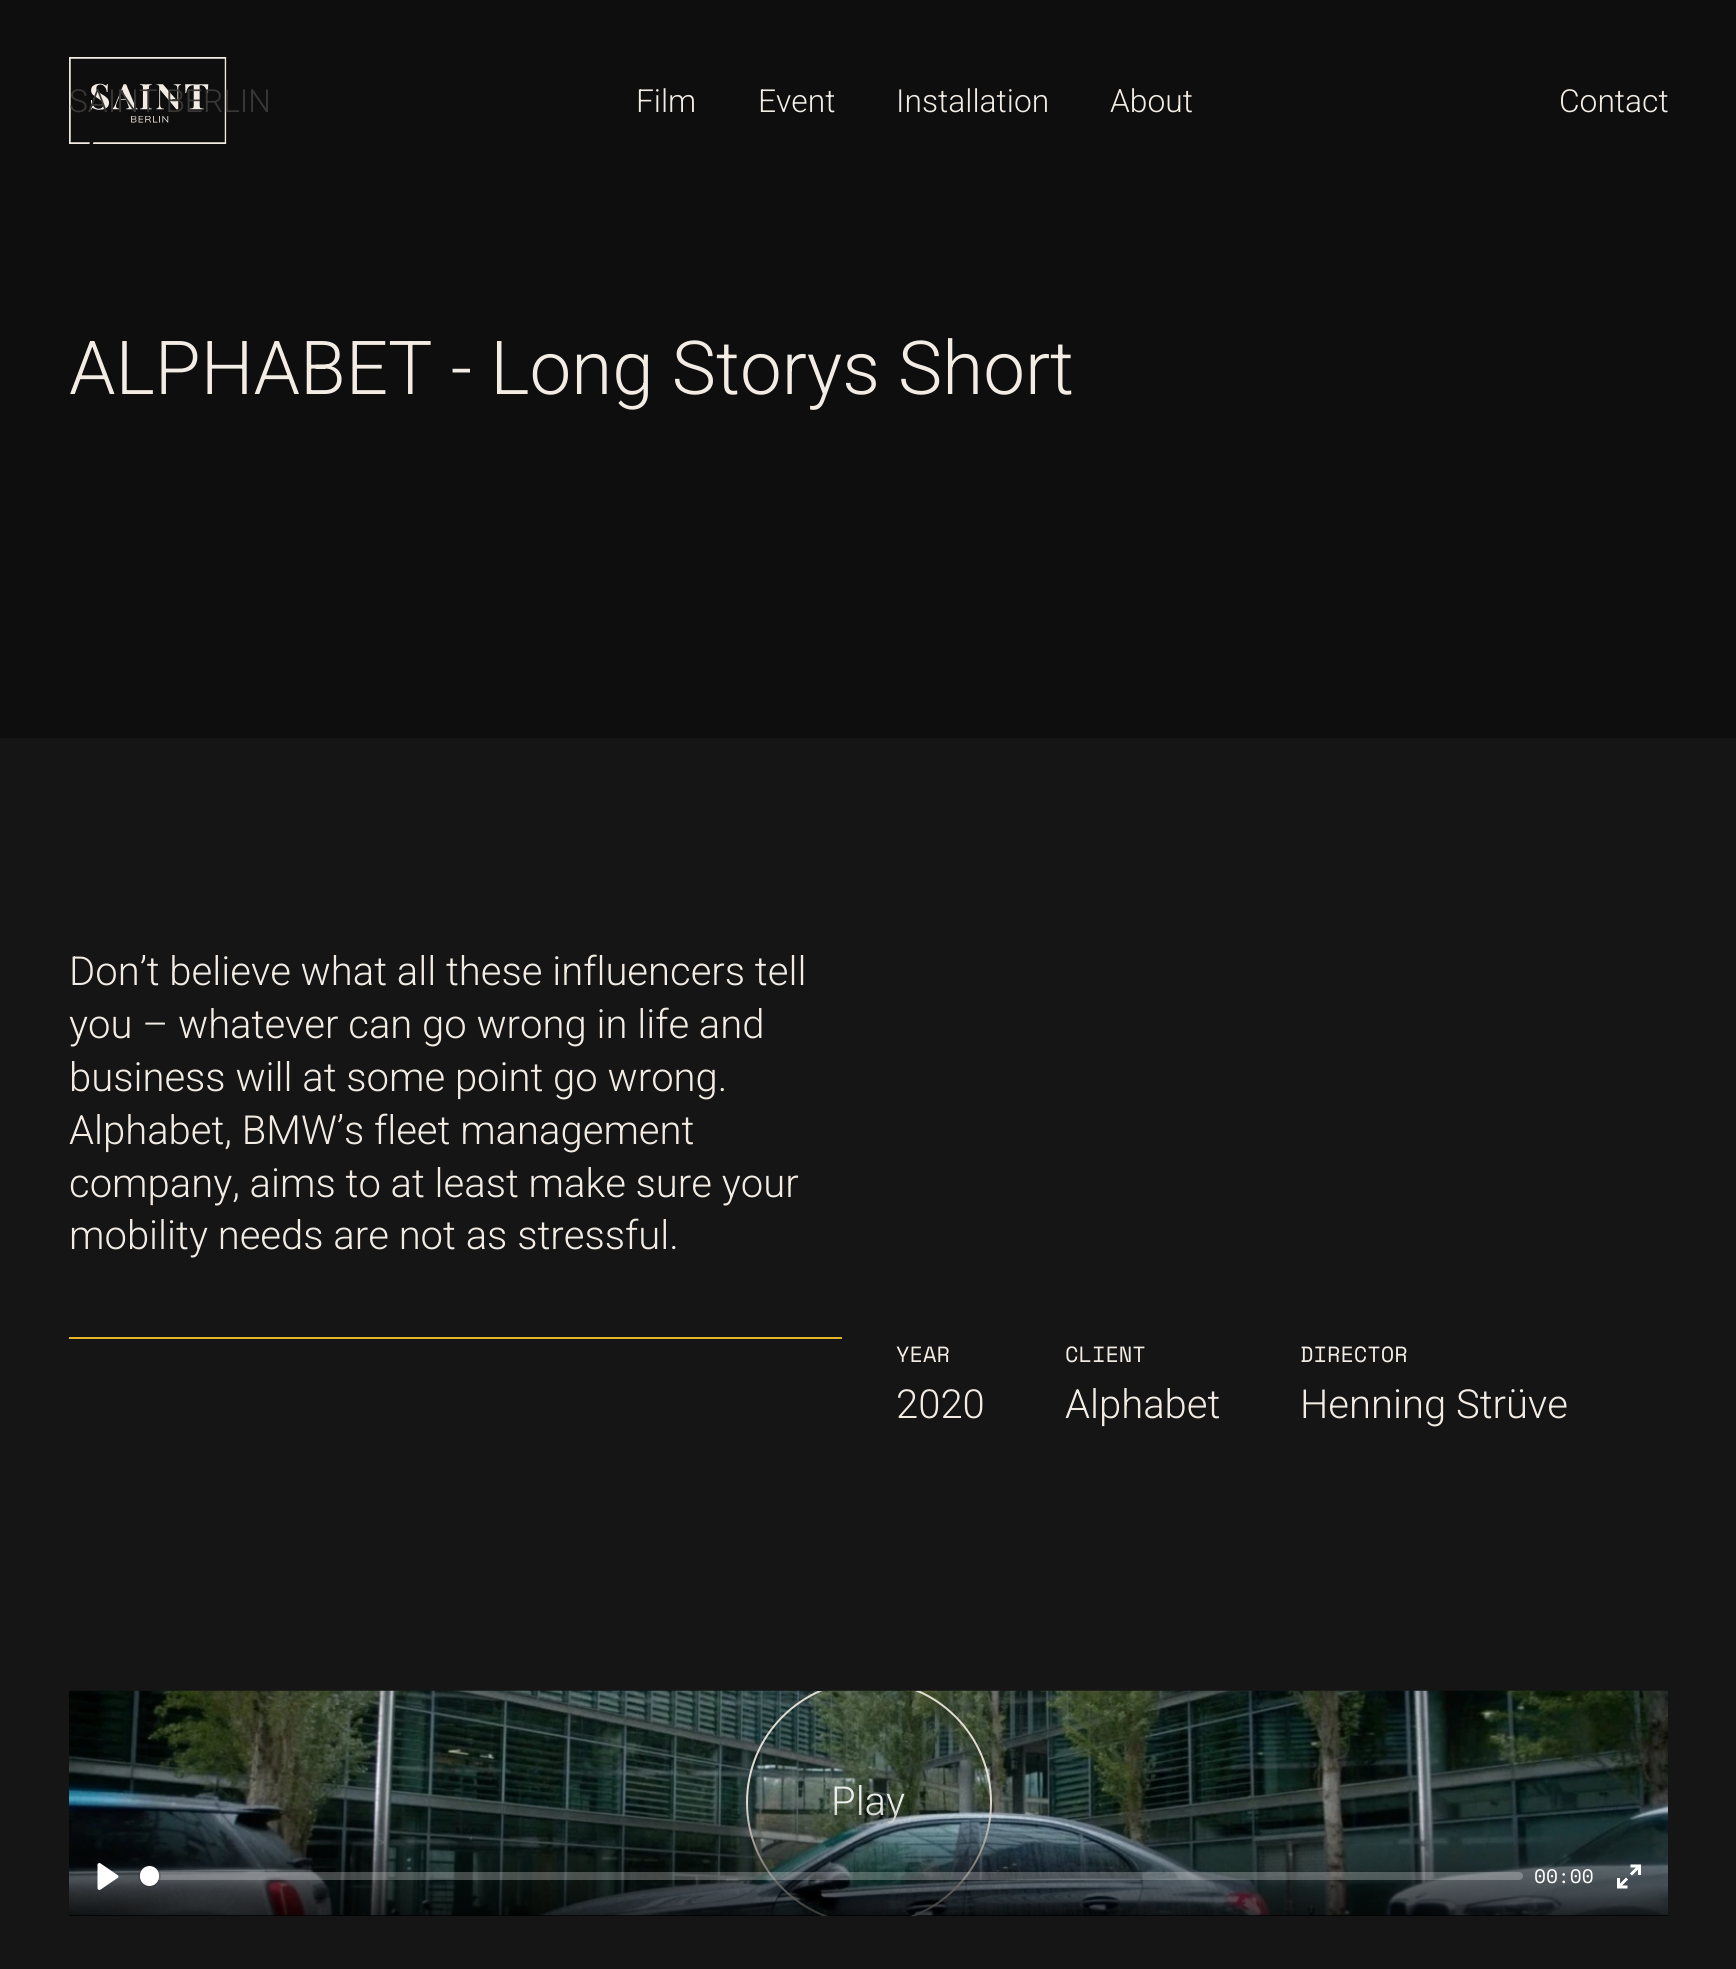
#include <cairo.h>
#include <math.h>
#include <stddef.h>


static void set_color(cairo_t *cr, unsigned color) {
    cairo_set_source_rgb(cr, (color >> 16) / 255.0, (color >> 8 & 255) / 255.0, (color & 255) / 255.0);
}

static void draw_text(cairo_t *cr, double x, double y, const char *s, const char *family, double size, int italic, int bold, unsigned color) {
    cairo_select_font_face(cr, family, italic ? CAIRO_FONT_SLANT_ITALIC : CAIRO_FONT_SLANT_NORMAL,
        bold ? CAIRO_FONT_WEIGHT_BOLD : CAIRO_FONT_WEIGHT_NORMAL);
    cairo_set_font_size(cr, size);
    set_color(cr, color);
    cairo_move_to(cr, x, y);
    cairo_show_text(cr, s);
}

static void fill_rect(cairo_t *cr, double x, double y, double w, double h, unsigned color) {
    set_color(cr, color);
    cairo_rectangle(cr, x, y, w, h);
    cairo_fill(cr);
}

static void rounded_rect(cairo_t *cr, double x, double y, double w, double h, double r) {
    cairo_new_sub_path(cr);
    cairo_arc(cr, x + w - r, y + h - r, r, 0, M_PI / 2);
    cairo_arc(cr, x + r, y + h - r, r, M_PI / 2, M_PI);
    cairo_arc(cr, x + r, y + r, r, M_PI, 1.5 * M_PI);
    cairo_arc(cr, x + w - r, y + r, r, 1.5 * M_PI, 2 * M_PI);
    cairo_close_path(cr);
}

static void draw_shadow(cairo_t *cr, double x, double y, double w, double h, double r, double blur, double alpha) {
    cairo_push_group_with_content(cr, CAIRO_CONTENT_ALPHA);
    cairo_set_operator(cr, CAIRO_OPERATOR_SOURCE);
    for (int i = 15; i >= -15 && fmin(w, h) + blur * i / 3 > 0; i -= 2) {
        double e = blur * i / 6;
        cairo_set_source_rgba(cr, 0, 0, 0, alpha * erfc((i - 1) / 8.5) / 2);
        rounded_rect(cr, x - e, y - e, w + 2 * e, h + 2 * e, fmax(0, fmin(r + e + blur * .6, fmin(w, h) / 2 + e)));
        cairo_fill(cr);
    }
    cairo_pattern_t *soft = cairo_pop_group(cr);
    cairo_mask(cr, soft);
    cairo_pattern_destroy(soft);
}

static void draw_image(cairo_t *cr, const char *path, double x, double y, double w, double h) {
    cairo_surface_t *image = cairo_image_surface_create_from_png(path);
    cairo_save(cr);
    cairo_set_source_surface(cr, image, x, y);
    cairo_rectangle(cr, x, y, w, h);
    cairo_fill(cr);
    cairo_restore(cr);
    cairo_surface_destroy(image);
}

int main(void) {
    cairo_surface_t *surface = cairo_image_surface_create(CAIRO_FORMAT_RGB24, 1736, 1969);
    cairo_t *cr = cairo_create(surface);
    cairo_font_options_t *options = cairo_font_options_create();
    cairo_font_options_set_hint_metrics(options, CAIRO_HINT_METRICS_OFF);
    cairo_font_options_set_hint_style(options, CAIRO_HINT_STYLE_NONE);
    cairo_set_font_options(cr, options);
    cairo_set_miter_limit(cr, 4);
    cairo_pattern_t *gradient;
    set_color(cr, 0x151515);
    cairo_paint(cr);
    fill_rect(cr, 0, 0, 1736, 738, 0x0E0E0E);
    draw_image(cr, "assets/img1.png", 69, 57, 158, 87);
    draw_text(cr, 69, 112, "SAINT BERLIN", "Roboto Light", 31.75, 0, 0, 0x393837);
    draw_text(cr, 636, 112, "Film", "Roboto Light", 31.75, 0, 0, 0xF2ECE4);
    draw_text(cr, 758, 112, "Event", "Roboto Light", 31.75, 0, 0, 0xF2ECE4);
    draw_text(cr, 896, 112, "Installation", "Roboto Light", 31.75, 0, 0, 0xF2ECE4);
    draw_text(cr, 1110, 112, "About", "Roboto Light", 31.75, 0, 0, 0xF2ECE4);
    draw_text(cr, 1559, 112, "Contact", "Roboto Light", 31.75, 0, 0, 0xF2ECE4);
    draw_text(cr, 69, 394, "ALPHABET - Long Storys Short", "Roboto Light", 74.5, 0, 0, 0xF2ECE4);
    draw_text(cr, 69, 985, "Don’t believe what all these influencers tell", "Roboto Light", 40, 0, 0, 0xF2ECE4);
    draw_text(cr, 69, 1038, "you – whatever can go wrong in life and", "Roboto Light", 40, 0, 0, 0xF2ECE4);
    draw_text(cr, 69, 1091, "business will at some point go wrong.", "Roboto Light", 40, 0, 0, 0xF2ECE4);
    draw_text(cr, 69, 1144, "Alphabet, BMW’s fleet management", "Roboto Light", 40, 0, 0, 0xF2ECE4);
    draw_text(cr, 69, 1197, "company, aims to at least make sure your", "Roboto Light", 40, 0, 0, 0xF2ECE4);
    draw_text(cr, 69, 1249, "mobility needs are not as stressful.", "Roboto Light", 40, 0, 0, 0xF2ECE4);
    fill_rect(cr, 69, 1337, 773, 2, 0xE4B529);
    draw_text(cr, 896, 1362, "YEAR", "Space Mono", 22, 0, 0, 0xF2ECE4);
    draw_text(cr, 896, 1418, "2020", "Roboto Light", 40, 0, 0, 0xF2ECE4);
    draw_text(cr, 1065, 1362, "CLIENT", "Space Mono", 22, 0, 0, 0xF2ECE4);
    draw_text(cr, 1065, 1418, "Alphabet", "Roboto Light", 40, 0, 0, 0xF2ECE4);
    draw_text(cr, 1300, 1362, "DIRECTOR", "Space Mono", 22, 0, 0, 0xF2ECE4);
    draw_text(cr, 1300, 1418, "Henning Strüve", "Roboto Light", 40, 0, 0, 0xF2ECE4);
    fill_rect(cr, 69, 1915, 1599, 1, 0x000000);
    draw_image(cr, "assets/img2.png", 69, 1690, 1599, 226);
    cairo_save(cr);
    cairo_rectangle(cr, 69, 1691, 1599, 225);
    cairo_clip(cr);
    rounded_rect(cr, 747, 1681, 244, 243, 121.5);
    cairo_set_source_rgba(cr, 0.949, 0.925, 0.894, 0.9);
    cairo_stroke(cr);
    cairo_restore(cr);
    draw_text(cr, 831, 1815, "Play", "Roboto Light", 40, 0, 0, 0xECEEEC);
    gradient = cairo_pattern_create_linear(869, 1800, 869, 1916);
    cairo_pattern_add_color_stop_rgba(gradient, 0, 0, 0, 0, 0);
    cairo_pattern_add_color_stop_rgba(gradient, 1, 0, 0, 0, 0.75);
    cairo_set_source(cr, gradient);
    cairo_pattern_destroy(gradient);
    cairo_rectangle(cr, 69, 1803, 1599, 113);
    cairo_fill(cr);
    draw_image(cr, "assets/img3.png", 97, 1863, 22, 27);
    cairo_set_source_rgba(cr, 1, 1, 1, 0.25);
    rounded_rect(cr, 140, 1872, 1383, 8, 4);
    cairo_fill(cr);
    rounded_rect(cr, 139, 1866, 21, 20, 10);
    cairo_set_source_rgba(cr, 0.137, 0.157, 0.184, 0.2);
    cairo_stroke(cr);
    set_color(cr, 0x23282F);
    draw_shadow(cr, 140, 1868, 19, 19, 9.5, 1, 0.15);
    set_color(cr, 0xFFFFFF);
    rounded_rect(cr, 140, 1866, 19, 20, 9.5);
    cairo_fill(cr);
    draw_text(cr, 1534, 1883, "00:00", "Space Mono", 19.5, 0, 0, 0xFFFFFF);
    draw_image(cr, "assets/img4.png", 1617, 1864, 24, 25);
    cairo_surface_write_to_png(surface, "output.png");
    cairo_font_options_destroy(options);
    cairo_destroy(cr);
    cairo_surface_destroy(surface);
    return 0;
}
